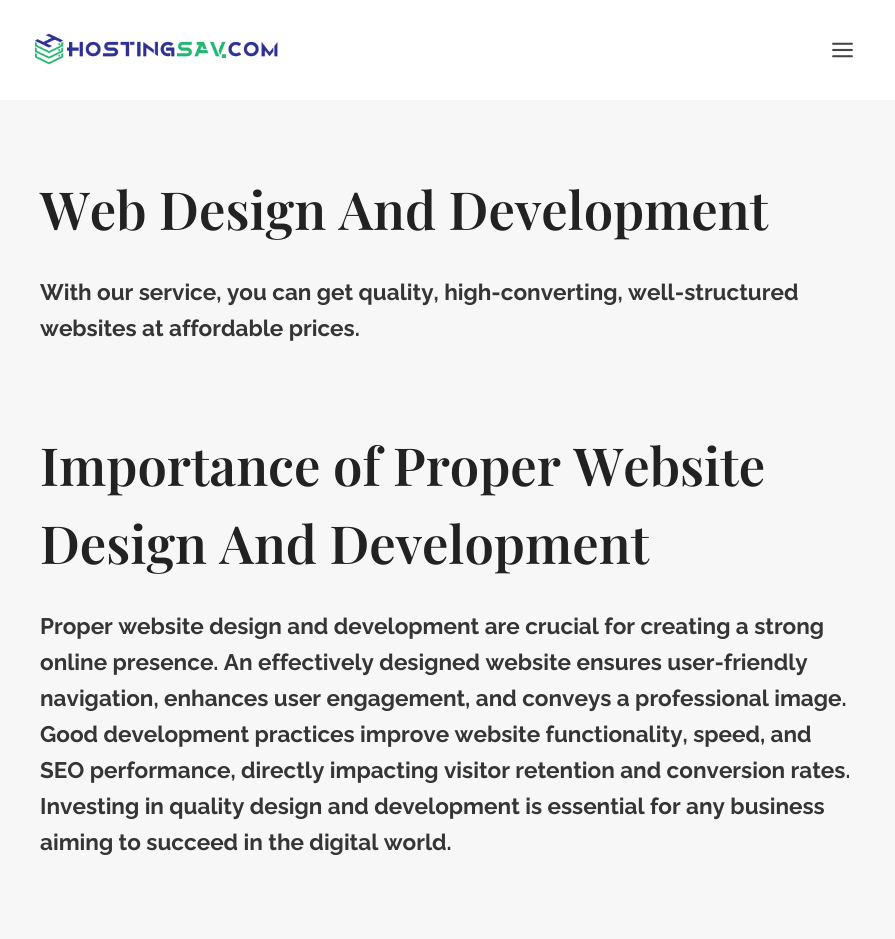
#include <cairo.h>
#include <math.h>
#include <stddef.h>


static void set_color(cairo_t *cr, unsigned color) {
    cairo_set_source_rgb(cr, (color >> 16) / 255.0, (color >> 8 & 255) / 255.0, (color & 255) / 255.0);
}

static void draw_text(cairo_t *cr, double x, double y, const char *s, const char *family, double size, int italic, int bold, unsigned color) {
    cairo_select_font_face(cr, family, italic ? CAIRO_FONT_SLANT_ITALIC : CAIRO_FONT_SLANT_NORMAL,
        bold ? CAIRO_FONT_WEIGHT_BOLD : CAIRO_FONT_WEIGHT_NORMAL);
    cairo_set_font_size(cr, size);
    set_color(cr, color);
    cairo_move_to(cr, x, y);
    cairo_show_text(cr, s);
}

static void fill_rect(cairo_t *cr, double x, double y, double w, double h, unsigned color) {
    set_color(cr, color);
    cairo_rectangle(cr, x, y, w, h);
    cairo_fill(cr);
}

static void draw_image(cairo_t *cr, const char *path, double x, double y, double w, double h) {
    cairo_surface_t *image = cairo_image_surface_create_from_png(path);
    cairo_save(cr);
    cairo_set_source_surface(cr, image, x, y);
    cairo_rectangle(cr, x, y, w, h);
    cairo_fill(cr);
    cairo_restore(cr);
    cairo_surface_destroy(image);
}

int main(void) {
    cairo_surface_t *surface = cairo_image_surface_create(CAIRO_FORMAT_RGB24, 895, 939);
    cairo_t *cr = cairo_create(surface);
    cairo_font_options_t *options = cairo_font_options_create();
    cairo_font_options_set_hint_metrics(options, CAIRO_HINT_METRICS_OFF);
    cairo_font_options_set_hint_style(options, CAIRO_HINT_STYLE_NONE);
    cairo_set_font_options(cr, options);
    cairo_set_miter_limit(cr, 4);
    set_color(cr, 0xF7F7F7);
    cairo_paint(cr);
    fill_rect(cr, 0, 0, 895, 100, 0xFFFFFF);
    draw_image(cr, "assets/img1.png", 34, 33, 244, 32);
    draw_image(cr, "assets/img2.png", 832, 42, 21, 16);
    draw_text(cr, 40, 230, "Web Design And Development", "Playfair Display SemiBold", 52.5, 0, 0, 0x222222);
    draw_text(cr, 40, 300, "With our service, you can get quality, high-converting, well-structured", "Raleway", 22.5, 0, 1, 0x353535);
    draw_text(cr, 40, 336, "websites at affordable prices.", "Raleway", 22.5, 0, 1, 0x353535);
    draw_text(cr, 40, 486, "Importance of Proper Website", "Playfair Display SemiBold", 52.5, 0, 0, 0x222222);
    draw_text(cr, 40, 564, "Design And Development", "Playfair Display SemiBold", 52.5, 0, 0, 0x222222);
    draw_text(cr, 40, 634, "Proper website design and development are crucial for creating a strong", "Raleway", 22.5, 0, 1, 0x353535);
    draw_text(cr, 40, 670, "online presence. An effectively designed website ensures user-friendly", "Raleway", 22.5, 0, 1, 0x353535);
    draw_text(cr, 40, 706, "navigation, enhances user engagement, and conveys a professional image.", "Raleway", 22.5, 0, 1, 0x353535);
    draw_text(cr, 40, 742, "Good development practices improve website functionality, speed, and", "Raleway", 22.5, 0, 1, 0x353535);
    draw_text(cr, 40, 778, "SEO performance, directly impacting visitor retention and conversion rates.", "Raleway", 22.5, 0, 1, 0x353535);
    draw_text(cr, 40, 814, "Investing in quality design and development is essential for any business", "Raleway", 22.5, 0, 1, 0x353535);
    draw_text(cr, 40, 850, "aiming to succeed in the digital world.", "Raleway", 22.5, 0, 1, 0x353535);
    cairo_surface_write_to_png(surface, "output.png");
    cairo_font_options_destroy(options);
    cairo_destroy(cr);
    cairo_surface_destroy(surface);
    return 0;
}
